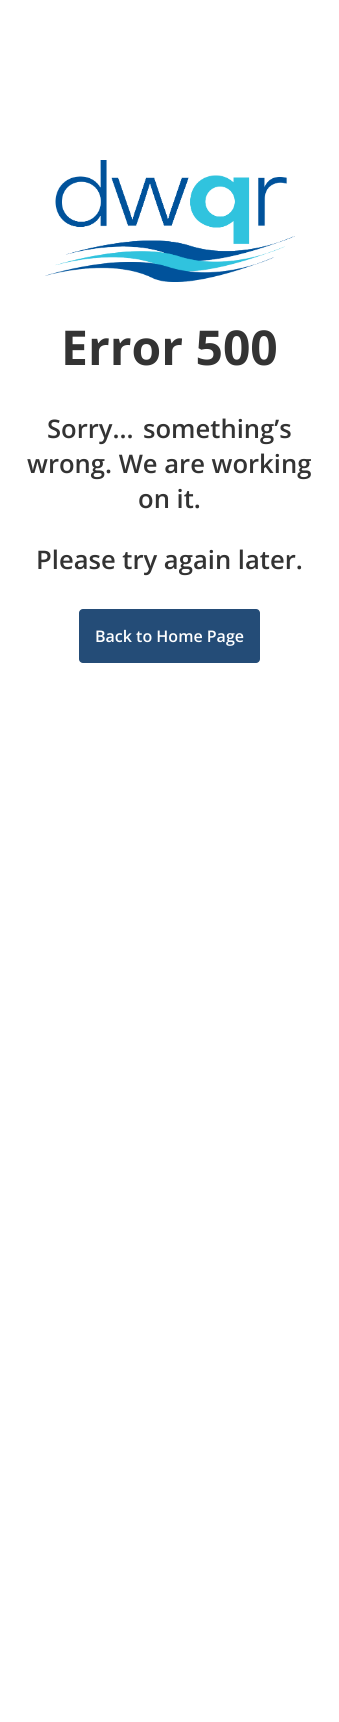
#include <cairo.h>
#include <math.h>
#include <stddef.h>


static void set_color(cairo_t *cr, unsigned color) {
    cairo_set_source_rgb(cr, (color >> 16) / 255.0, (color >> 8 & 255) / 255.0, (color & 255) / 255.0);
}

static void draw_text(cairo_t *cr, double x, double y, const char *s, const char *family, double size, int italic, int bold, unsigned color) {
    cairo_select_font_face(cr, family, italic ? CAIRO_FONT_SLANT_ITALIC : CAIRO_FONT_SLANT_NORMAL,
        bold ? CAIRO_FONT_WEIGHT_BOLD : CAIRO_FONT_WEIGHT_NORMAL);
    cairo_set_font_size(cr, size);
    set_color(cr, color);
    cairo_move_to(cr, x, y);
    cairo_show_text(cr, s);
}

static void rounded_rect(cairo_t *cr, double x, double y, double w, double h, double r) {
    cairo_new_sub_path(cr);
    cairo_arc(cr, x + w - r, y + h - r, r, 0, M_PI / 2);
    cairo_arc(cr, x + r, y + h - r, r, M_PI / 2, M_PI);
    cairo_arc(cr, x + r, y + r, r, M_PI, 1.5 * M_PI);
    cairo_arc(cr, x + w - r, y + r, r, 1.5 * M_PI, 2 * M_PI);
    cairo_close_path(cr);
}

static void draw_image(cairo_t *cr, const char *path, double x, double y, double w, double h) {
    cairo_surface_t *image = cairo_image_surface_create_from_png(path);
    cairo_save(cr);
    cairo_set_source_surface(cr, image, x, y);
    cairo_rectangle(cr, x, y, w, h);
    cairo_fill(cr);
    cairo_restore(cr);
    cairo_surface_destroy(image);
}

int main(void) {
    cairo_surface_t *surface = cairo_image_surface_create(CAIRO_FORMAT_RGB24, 339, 1722);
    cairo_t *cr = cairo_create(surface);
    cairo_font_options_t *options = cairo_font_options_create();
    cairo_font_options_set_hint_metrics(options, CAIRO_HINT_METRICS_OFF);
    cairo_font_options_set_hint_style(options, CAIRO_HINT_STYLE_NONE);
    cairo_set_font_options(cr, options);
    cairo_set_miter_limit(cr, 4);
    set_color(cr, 0xFFFFFF);
    cairo_paint(cr);
    draw_image(cr, "assets/img1.png", 45, 160, 250, 122);
    draw_text(cr, 61, 365, "Error 500", "Open Sans", 48, 0, 1, 0x333333);
    draw_text(cr, 47, 438, "Sorry...", "Open Sans SemiBold", 25.6, 0, 0, 0x333333);
    draw_text(cr, 143, 438, "something’s", "Open Sans SemiBold", 25.6, 0, 0, 0x333333);
    draw_text(cr, 27, 473, "wrong. We are working", "Open Sans SemiBold", 25.6, 0, 0, 0x333333);
    draw_text(cr, 138, 508, "on it.", "Open Sans SemiBold", 25.6, 0, 0, 0x333333);
    draw_text(cr, 36, 569, "Please try again later.", "Open Sans SemiBold", 25.6, 0, 0, 0x333333);
    set_color(cr, 0x244C77);
    rounded_rect(cr, 79, 609, 181, 54, 4);
    cairo_fill(cr);
    draw_text(cr, 95, 642, "Back to Home Page", "Open Sans SemiBold", 16, 0, 0, 0xFFFFFF);
    cairo_surface_write_to_png(surface, "output.png");
    cairo_font_options_destroy(options);
    cairo_destroy(cr);
    cairo_surface_destroy(surface);
    return 0;
}
